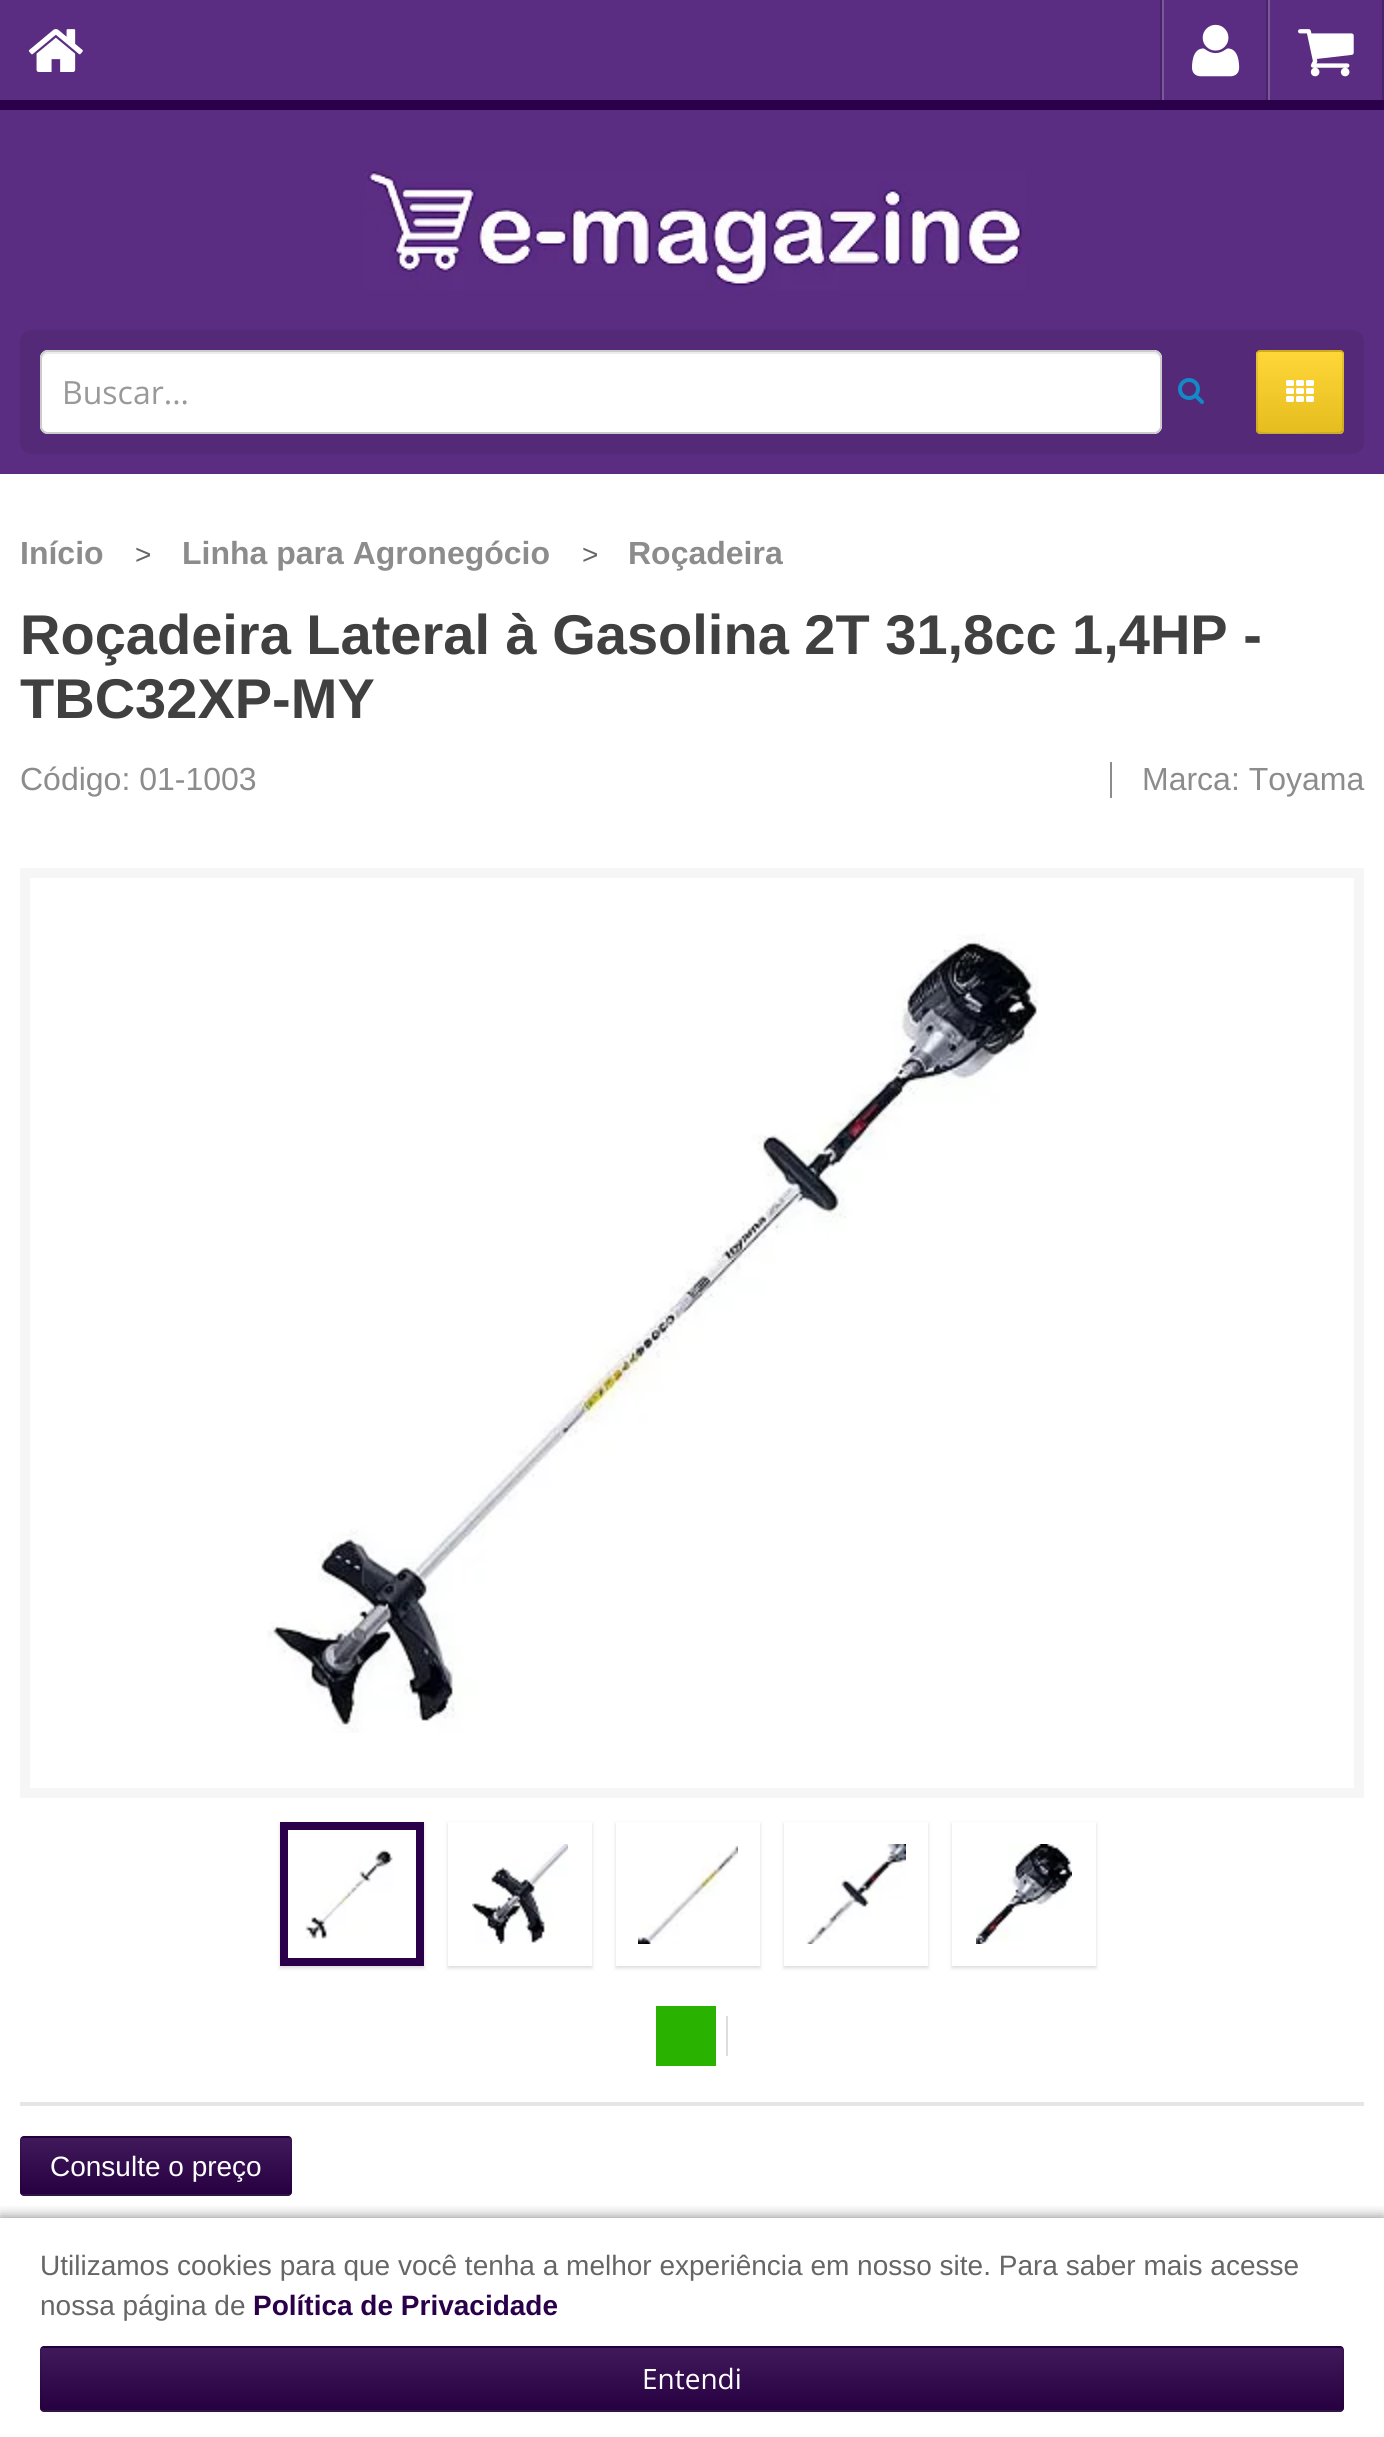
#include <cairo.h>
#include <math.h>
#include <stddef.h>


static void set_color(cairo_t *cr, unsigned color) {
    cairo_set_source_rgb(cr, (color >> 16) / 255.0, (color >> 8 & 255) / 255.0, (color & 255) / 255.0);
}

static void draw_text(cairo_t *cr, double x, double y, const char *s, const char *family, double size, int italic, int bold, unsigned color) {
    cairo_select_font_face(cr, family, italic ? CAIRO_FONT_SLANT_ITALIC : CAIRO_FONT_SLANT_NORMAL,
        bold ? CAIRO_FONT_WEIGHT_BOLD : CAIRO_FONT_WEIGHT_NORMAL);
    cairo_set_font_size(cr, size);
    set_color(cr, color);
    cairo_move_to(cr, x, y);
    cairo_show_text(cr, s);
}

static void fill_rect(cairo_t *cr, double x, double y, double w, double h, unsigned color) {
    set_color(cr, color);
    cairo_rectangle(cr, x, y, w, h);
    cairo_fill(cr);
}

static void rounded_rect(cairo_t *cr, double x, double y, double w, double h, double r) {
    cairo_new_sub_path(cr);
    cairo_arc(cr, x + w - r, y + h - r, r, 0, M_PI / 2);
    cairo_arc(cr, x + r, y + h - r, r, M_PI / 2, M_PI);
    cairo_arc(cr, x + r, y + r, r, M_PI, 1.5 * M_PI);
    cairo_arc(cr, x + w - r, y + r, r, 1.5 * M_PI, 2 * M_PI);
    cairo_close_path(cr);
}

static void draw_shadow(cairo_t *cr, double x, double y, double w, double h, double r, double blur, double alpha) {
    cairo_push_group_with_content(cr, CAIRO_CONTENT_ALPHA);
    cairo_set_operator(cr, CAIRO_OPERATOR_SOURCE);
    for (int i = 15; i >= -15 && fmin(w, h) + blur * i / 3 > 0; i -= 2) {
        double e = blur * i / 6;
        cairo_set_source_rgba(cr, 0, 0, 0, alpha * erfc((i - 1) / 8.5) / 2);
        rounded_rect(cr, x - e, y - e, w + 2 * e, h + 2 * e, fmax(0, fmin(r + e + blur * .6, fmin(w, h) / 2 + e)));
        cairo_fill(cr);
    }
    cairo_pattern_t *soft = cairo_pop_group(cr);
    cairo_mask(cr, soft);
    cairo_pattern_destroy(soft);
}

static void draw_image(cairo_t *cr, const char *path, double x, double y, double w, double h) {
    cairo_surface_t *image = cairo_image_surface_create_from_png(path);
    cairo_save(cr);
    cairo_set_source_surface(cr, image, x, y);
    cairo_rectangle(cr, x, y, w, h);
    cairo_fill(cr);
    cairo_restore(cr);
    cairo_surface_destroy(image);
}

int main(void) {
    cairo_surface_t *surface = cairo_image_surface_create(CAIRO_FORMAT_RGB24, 1384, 2437);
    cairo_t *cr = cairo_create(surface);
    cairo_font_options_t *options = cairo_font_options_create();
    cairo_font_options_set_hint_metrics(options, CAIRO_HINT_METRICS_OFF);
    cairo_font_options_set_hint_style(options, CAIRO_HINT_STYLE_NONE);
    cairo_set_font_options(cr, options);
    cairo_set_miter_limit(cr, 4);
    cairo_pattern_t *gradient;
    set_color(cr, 0xFFFFFF);
    cairo_paint(cr);
    fill_rect(cr, 0, 0, 1384, 474, 0x5A2D82);
    fill_rect(cr, 0, 100, 1384, 10, 0x2B004A);
    draw_image(cr, "assets/img1.png", 28, 29, 55, 43);
    fill_rect(cr, 1160, 0, 2, 100, 0x482468);
    fill_rect(cr, 1266, 0, 2, 100, 0x482468);
    fill_rect(cr, 1162, 0, 2, 100, 0x7B579B);
    draw_image(cr, "assets/img2.png", 1192, 24, 48, 53);
    fill_rect(cr, 1382, 0, 2, 100, 0x482468);
    fill_rect(cr, 1268, 0, 2, 100, 0x7B579B);
    draw_image(cr, "assets/img3.png", 1298, 29, 56, 48);
    draw_image(cr, "assets/img4.png", 365, 170, 661, 120);
    set_color(cr, 0x532978);
    rounded_rect(cr, 20, 330, 1344, 124, 12);
    cairo_fill(cr);
    set_color(cr, 0xFFFFFF);
    rounded_rect(cr, 40, 350, 1122, 84, 8);
    cairo_fill(cr);
    set_color(cr, 0xECECEC);
    cairo_new_path(cr);
    cairo_move_to(cr, 48, 354);
    cairo_line_to(cr, 1154, 354);
    cairo_curve_to(cr, 1157, 354, 1160, 357, 1160, 360);
    cairo_line_to(cr, 1160, 358);
    cairo_curve_to(cr, 1160, 355, 1157, 352, 1154, 352);
    cairo_line_to(cr, 48, 352);
    cairo_curve_to(cr, 45, 352, 42, 355, 42, 358);
    cairo_line_to(cr, 42, 360);
    cairo_curve_to(cr, 42, 357, 45, 354, 48, 354);
    cairo_close_path(cr);
    cairo_fill(cr);
    rounded_rect(cr, 41, 351, 1120, 82, 7);
    set_color(cr, 0xCCCCCC);
    cairo_stroke(cr);
    draw_text(cr, 62, 404, "Buscar...", "Open Sans", 32, 0, 0, 0x999999);
    draw_image(cr, "assets/img5.png", 1178, 378, 26, 26);
    set_color(cr, 0xFFD322);
    rounded_rect(cr, 1256, 350, 88, 84, 4);
    cairo_fill(cr);
    cairo_save(cr);
    rounded_rect(cr, 1256, 350, 88, 84, 4);
    cairo_clip(cr);
    gradient = cairo_pattern_create_linear(1300, 272, 1300, 352);
    cairo_pattern_add_color_stop_rgba(gradient, 0, 1, 1, 1, 0.1);
    cairo_pattern_add_color_stop_rgba(gradient, 1, 0, 0, 0, 0.1);
    cairo_set_source(cr, gradient);
    cairo_pattern_destroy(gradient);
    cairo_rectangle(cr, 1256, 350, 88, 2);
    cairo_fill(cr);
    cairo_restore(cr);
    gradient = cairo_pattern_create_linear(1300, 352, 1300, 432);
    cairo_pattern_add_color_stop_rgba(gradient, 0, 1, 1, 1, 0.1);
    cairo_pattern_add_color_stop_rgba(gradient, 1, 0, 0, 0, 0.1);
    cairo_set_source(cr, gradient);
    cairo_pattern_destroy(gradient);
    cairo_rectangle(cr, 1256, 352, 88, 80);
    cairo_fill(cr);
    cairo_save(cr);
    rounded_rect(cr, 1256, 350, 88, 84, 4);
    cairo_clip(cr);
    gradient = cairo_pattern_create_linear(1300, 432, 1300, 512);
    cairo_pattern_add_color_stop_rgba(gradient, 0, 1, 1, 1, 0.1);
    cairo_pattern_add_color_stop_rgba(gradient, 1, 0, 0, 0, 0.1);
    cairo_set_source(cr, gradient);
    cairo_pattern_destroy(gradient);
    cairo_rectangle(cr, 1256, 432, 88, 2);
    cairo_fill(cr);
    cairo_restore(cr);
    cairo_new_path(cr);
    cairo_move_to(cr, 1342, 432);
    cairo_line_to(cr, 1340, 433);
    cairo_line_to(cr, 1326.5, 433);
    cairo_curve_to(cr, 1319, 433, 1260, 434, 1258, 432.5);
    cairo_line_to(cr, 1258, 432);
    cairo_set_source_rgba(cr, 0, 0, 0, 0.2);
    cairo_stroke(cr);
    cairo_new_path(cr);
    cairo_move_to(cr, 1258, 432);
    cairo_line_to(cr, 1257, 430);
    cairo_line_to(cr, 1257, 366.5);
    cairo_curve_to(cr, 1257, 348, 1254, 351, 1273.5, 351);
    cairo_line_to(cr, 1326.5, 351);
    cairo_curve_to(cr, 1346, 351, 1343, 348, 1343, 366.5);
    cairo_line_to(cr, 1343, 430);
    cairo_line_to(cr, 1342, 432);
    cairo_set_source_rgba(cr, 0, 0, 0, 0.1);
    cairo_stroke(cr);
    draw_image(cr, "assets/img6.png", 1286, 380, 28, 22);
    draw_text(cr, 20, 564, "Início", "Liberation Sans", 32, 0, 1, 0x8C8C8C);
    draw_text(cr, 135, 564, "˃", "Liberation Sans", 28, 0, 0, 0x666666);
    draw_text(cr, 182, 564, "Linha para Agronegócio", "Liberation Sans", 32, 0, 1, 0x8C8C8C);
    draw_text(cr, 582, 564, "˃", "Liberation Sans", 28, 0, 0, 0x666666);
    draw_text(cr, 628, 564, "Roçadeira", "Liberation Sans", 32, 0, 1, 0x8C8C8C);
    draw_text(cr, 20, 654, "Roçadeira Lateral à Gasolina 2T 31,8cc 1,4HP -", "Liberation Sans", 56, 0, 1, 0x404040);
    draw_text(cr, 20, 718, "TBC32XP-MY", "Liberation Sans", 56, 0, 1, 0x404040);
    draw_text(cr, 20, 790, "Código: 01-1003", "Liberation Sans", 32, 0, 0, 0x8C8C8C);
    fill_rect(cr, 1110, 762, 2, 36, 0x8C8C8C);
    draw_text(cr, 1142, 790, "Marca: Toyama", "Liberation Sans", 32, 0, 0, 0x8C8C8C);
    cairo_rectangle(cr, 25, 873, 1334, 920);
    set_color(cr, 0xF6F6F6);
    cairo_set_line_width(cr, 10);
    cairo_stroke(cr);
    draw_image(cr, "assets/img7.png", 267, 934, 772, 799);
    cairo_save(cr);
    cairo_set_fill_rule(cr, CAIRO_FILL_RULE_EVEN_ODD);
    cairo_new_path(cr);
    cairo_move_to(cr, 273, 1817);
    cairo_line_to(cr, 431, 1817);
    cairo_line_to(cr, 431, 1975);
    cairo_line_to(cr, 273, 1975);
    cairo_close_path(cr);
    cairo_move_to(cr, 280, 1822);
    cairo_line_to(cr, 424, 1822);
    cairo_line_to(cr, 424, 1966);
    cairo_line_to(cr, 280, 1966);
    cairo_close_path(cr);
    cairo_clip(cr);
    set_color(cr, 0x000000);
    draw_shadow(cr, 280, 1824, 144, 144, 0, 2, 0.15);
    cairo_restore(cr);
    cairo_rectangle(cr, 284, 1826, 136, 136);
    set_color(cr, 0x2B004A);
    cairo_set_line_width(cr, 8);
    cairo_stroke(cr);
    draw_image(cr, "assets/img8.png", 305, 1849, 88, 90);
    cairo_save(cr);
    cairo_set_fill_rule(cr, CAIRO_FILL_RULE_EVEN_ODD);
    cairo_new_path(cr);
    cairo_move_to(cr, 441, 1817);
    cairo_line_to(cr, 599, 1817);
    cairo_line_to(cr, 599, 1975);
    cairo_line_to(cr, 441, 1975);
    cairo_close_path(cr);
    cairo_move_to(cr, 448, 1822);
    cairo_line_to(cr, 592, 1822);
    cairo_line_to(cr, 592, 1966);
    cairo_line_to(cr, 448, 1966);
    cairo_close_path(cr);
    cairo_clip(cr);
    set_color(cr, 0x000000);
    draw_shadow(cr, 448, 1824, 144, 144, 0, 2, 0.15);
    cairo_restore(cr);
    draw_image(cr, "assets/img9.png", 472, 1844, 96, 100);
    cairo_save(cr);
    cairo_set_fill_rule(cr, CAIRO_FILL_RULE_EVEN_ODD);
    cairo_new_path(cr);
    cairo_move_to(cr, 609, 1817);
    cairo_line_to(cr, 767, 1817);
    cairo_line_to(cr, 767, 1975);
    cairo_line_to(cr, 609, 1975);
    cairo_close_path(cr);
    cairo_move_to(cr, 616, 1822);
    cairo_line_to(cr, 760, 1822);
    cairo_line_to(cr, 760, 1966);
    cairo_line_to(cr, 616, 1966);
    cairo_close_path(cr);
    cairo_clip(cr);
    set_color(cr, 0x000000);
    draw_shadow(cr, 616, 1824, 144, 144, 0, 2, 0.15);
    cairo_restore(cr);
    draw_image(cr, "assets/img10.png", 638, 1846, 100, 98);
    cairo_save(cr);
    cairo_set_fill_rule(cr, CAIRO_FILL_RULE_EVEN_ODD);
    cairo_new_path(cr);
    cairo_move_to(cr, 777, 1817);
    cairo_line_to(cr, 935, 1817);
    cairo_line_to(cr, 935, 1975);
    cairo_line_to(cr, 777, 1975);
    cairo_close_path(cr);
    cairo_move_to(cr, 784, 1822);
    cairo_line_to(cr, 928, 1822);
    cairo_line_to(cr, 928, 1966);
    cairo_line_to(cr, 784, 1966);
    cairo_close_path(cr);
    cairo_clip(cr);
    set_color(cr, 0x000000);
    draw_shadow(cr, 784, 1824, 144, 144, 0, 2, 0.15);
    cairo_restore(cr);
    draw_image(cr, "assets/img11.png", 806, 1844, 100, 100);
    cairo_save(cr);
    cairo_set_fill_rule(cr, CAIRO_FILL_RULE_EVEN_ODD);
    cairo_new_path(cr);
    cairo_move_to(cr, 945, 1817);
    cairo_line_to(cr, 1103, 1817);
    cairo_line_to(cr, 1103, 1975);
    cairo_line_to(cr, 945, 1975);
    cairo_close_path(cr);
    cairo_move_to(cr, 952, 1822);
    cairo_line_to(cr, 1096, 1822);
    cairo_line_to(cr, 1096, 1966);
    cairo_line_to(cr, 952, 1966);
    cairo_close_path(cr);
    cairo_clip(cr);
    set_color(cr, 0x000000);
    draw_shadow(cr, 952, 1824, 144, 144, 0, 2, 0.15);
    cairo_restore(cr);
    draw_image(cr, "assets/img12.png", 976, 1844, 96, 100);
    fill_rect(cr, 20, 2102, 1344, 4, 0xE6E6E6);
    fill_rect(cr, 656, 2006, 60, 60, 0x2AB200);
    fill_rect(cr, 726, 2016, 2, 40, 0xDDDDDD);
    set_color(cr, 0x2B004A);
    rounded_rect(cr, 20, 2136, 272, 60, 4);
    cairo_fill(cr);
    cairo_save(cr);
    rounded_rect(cr, 20, 2136, 272, 60, 4);
    cairo_clip(cr);
    gradient = cairo_pattern_create_linear(156, 2082, 156, 2138);
    cairo_pattern_add_color_stop_rgba(gradient, 0, 1, 1, 1, 0.1);
    cairo_pattern_add_color_stop_rgba(gradient, 1, 0, 0, 0, 0.1);
    cairo_set_source(cr, gradient);
    cairo_pattern_destroy(gradient);
    cairo_rectangle(cr, 20, 2136, 272, 2);
    cairo_fill(cr);
    cairo_restore(cr);
    gradient = cairo_pattern_create_linear(156, 2138, 156, 2194);
    cairo_pattern_add_color_stop_rgba(gradient, 0, 1, 1, 1, 0.1);
    cairo_pattern_add_color_stop_rgba(gradient, 1, 0, 0, 0, 0.1);
    cairo_set_source(cr, gradient);
    cairo_pattern_destroy(gradient);
    cairo_rectangle(cr, 20, 2138, 272, 56);
    cairo_fill(cr);
    cairo_save(cr);
    rounded_rect(cr, 20, 2136, 272, 60, 4);
    cairo_clip(cr);
    gradient = cairo_pattern_create_linear(156, 2194, 156, 2250);
    cairo_pattern_add_color_stop_rgba(gradient, 0, 1, 1, 1, 0.1);
    cairo_pattern_add_color_stop_rgba(gradient, 1, 0, 0, 0, 0.1);
    cairo_set_source(cr, gradient);
    cairo_pattern_destroy(gradient);
    cairo_rectangle(cr, 20, 2194, 272, 2);
    cairo_fill(cr);
    cairo_restore(cr);
    cairo_new_path(cr);
    cairo_move_to(cr, 290, 2194);
    cairo_line_to(cr, 288, 2195);
    cairo_line_to(cr, 24, 2195);
    cairo_line_to(cr, 22, 2194);
    cairo_set_source_rgba(cr, 0, 0, 0, 0.2);
    cairo_set_line_width(cr, 2);
    cairo_stroke(cr);
    cairo_new_path(cr);
    cairo_move_to(cr, 22, 2194);
    cairo_line_to(cr, 21, 2192);
    cairo_line_to(cr, 21, 2140);
    cairo_line_to(cr, 22, 2138);
    cairo_line_to(cr, 24, 2137);
    cairo_line_to(cr, 288, 2137);
    cairo_line_to(cr, 290, 2138);
    cairo_line_to(cr, 291, 2140);
    cairo_line_to(cr, 291, 2192);
    cairo_line_to(cr, 290, 2194);
    cairo_set_source_rgba(cr, 0, 0, 0, 0.1);
    cairo_stroke(cr);
    draw_text(cr, 50, 2176, "Consulte o preço", "Liberation Sans", 28, 0, 0, 0xFFFFFF);
    cairo_save(cr);
    cairo_rectangle(cr, 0, 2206, 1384, 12);
    cairo_clip(cr);
    set_color(cr, 0x000000);
    draw_shadow(cr, 0, 2218, 1384, 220, 0, 7, 0.5);
    cairo_restore(cr);
    draw_text(cr, 40, 2275, "Utilizamos cookies para que você tenha a melhor experiência em nosso site. Para saber mais acesse", "Liberation Sans", 28, 0, 0, 0x666666);
    draw_text(cr, 40, 2315, "nossa página de", "Liberation Sans", 28, 0, 0, 0x666666);
    draw_text(cr, 253, 2315, "Política de Privacidade", "Liberation Sans", 28, 0, 1, 0x2B004A);
    rounded_rect(cr, 40, 2346, 1304, 66, 4);
    cairo_fill(cr);
    cairo_save(cr);
    rounded_rect(cr, 40, 2346, 1304, 66, 4);
    cairo_clip(cr);
    gradient = cairo_pattern_create_linear(692, 2286, 692, 2348);
    cairo_pattern_add_color_stop_rgba(gradient, 0, 1, 1, 1, 0.1);
    cairo_pattern_add_color_stop_rgba(gradient, 1, 0, 0, 0, 0.1);
    cairo_set_source(cr, gradient);
    cairo_pattern_destroy(gradient);
    cairo_rectangle(cr, 40, 2346, 1304, 2);
    cairo_fill(cr);
    cairo_restore(cr);
    gradient = cairo_pattern_create_linear(692, 2348, 692, 2410);
    cairo_pattern_add_color_stop_rgba(gradient, 0, 1, 1, 1, 0.1);
    cairo_pattern_add_color_stop_rgba(gradient, 1, 0, 0, 0, 0.1);
    cairo_set_source(cr, gradient);
    cairo_pattern_destroy(gradient);
    cairo_rectangle(cr, 40, 2348, 1304, 62);
    cairo_fill(cr);
    cairo_save(cr);
    rounded_rect(cr, 40, 2346, 1304, 66, 4);
    cairo_clip(cr);
    gradient = cairo_pattern_create_linear(692, 2410, 692, 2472);
    cairo_pattern_add_color_stop_rgba(gradient, 0, 1, 1, 1, 0.1);
    cairo_pattern_add_color_stop_rgba(gradient, 1, 0, 0, 0, 0.1);
    cairo_set_source(cr, gradient);
    cairo_pattern_destroy(gradient);
    cairo_rectangle(cr, 40, 2410, 1304, 2);
    cairo_fill(cr);
    cairo_restore(cr);
    cairo_new_path(cr);
    cairo_move_to(cr, 1342, 2410);
    cairo_line_to(cr, 1340, 2411);
    cairo_line_to(cr, 44, 2411);
    cairo_line_to(cr, 42, 2410);
    cairo_set_source_rgba(cr, 0, 0, 0, 0.2);
    cairo_stroke(cr);
    cairo_new_path(cr);
    cairo_move_to(cr, 42, 2410);
    cairo_line_to(cr, 41, 2408);
    cairo_line_to(cr, 41, 2350);
    cairo_line_to(cr, 42, 2348);
    cairo_line_to(cr, 44, 2347);
    cairo_line_to(cr, 1340, 2347);
    cairo_line_to(cr, 1342, 2348);
    cairo_line_to(cr, 1343, 2350);
    cairo_line_to(cr, 1343, 2408);
    cairo_line_to(cr, 1342, 2410);
    cairo_set_source_rgba(cr, 0, 0, 0, 0.1);
    cairo_stroke(cr);
    draw_text(cr, 642, 2389, "Entendi", "Open Sans", 28, 0, 0, 0xFFFFFF);
    cairo_surface_write_to_png(surface, "output.png");
    cairo_font_options_destroy(options);
    cairo_destroy(cr);
    cairo_surface_destroy(surface);
    return 0;
}
